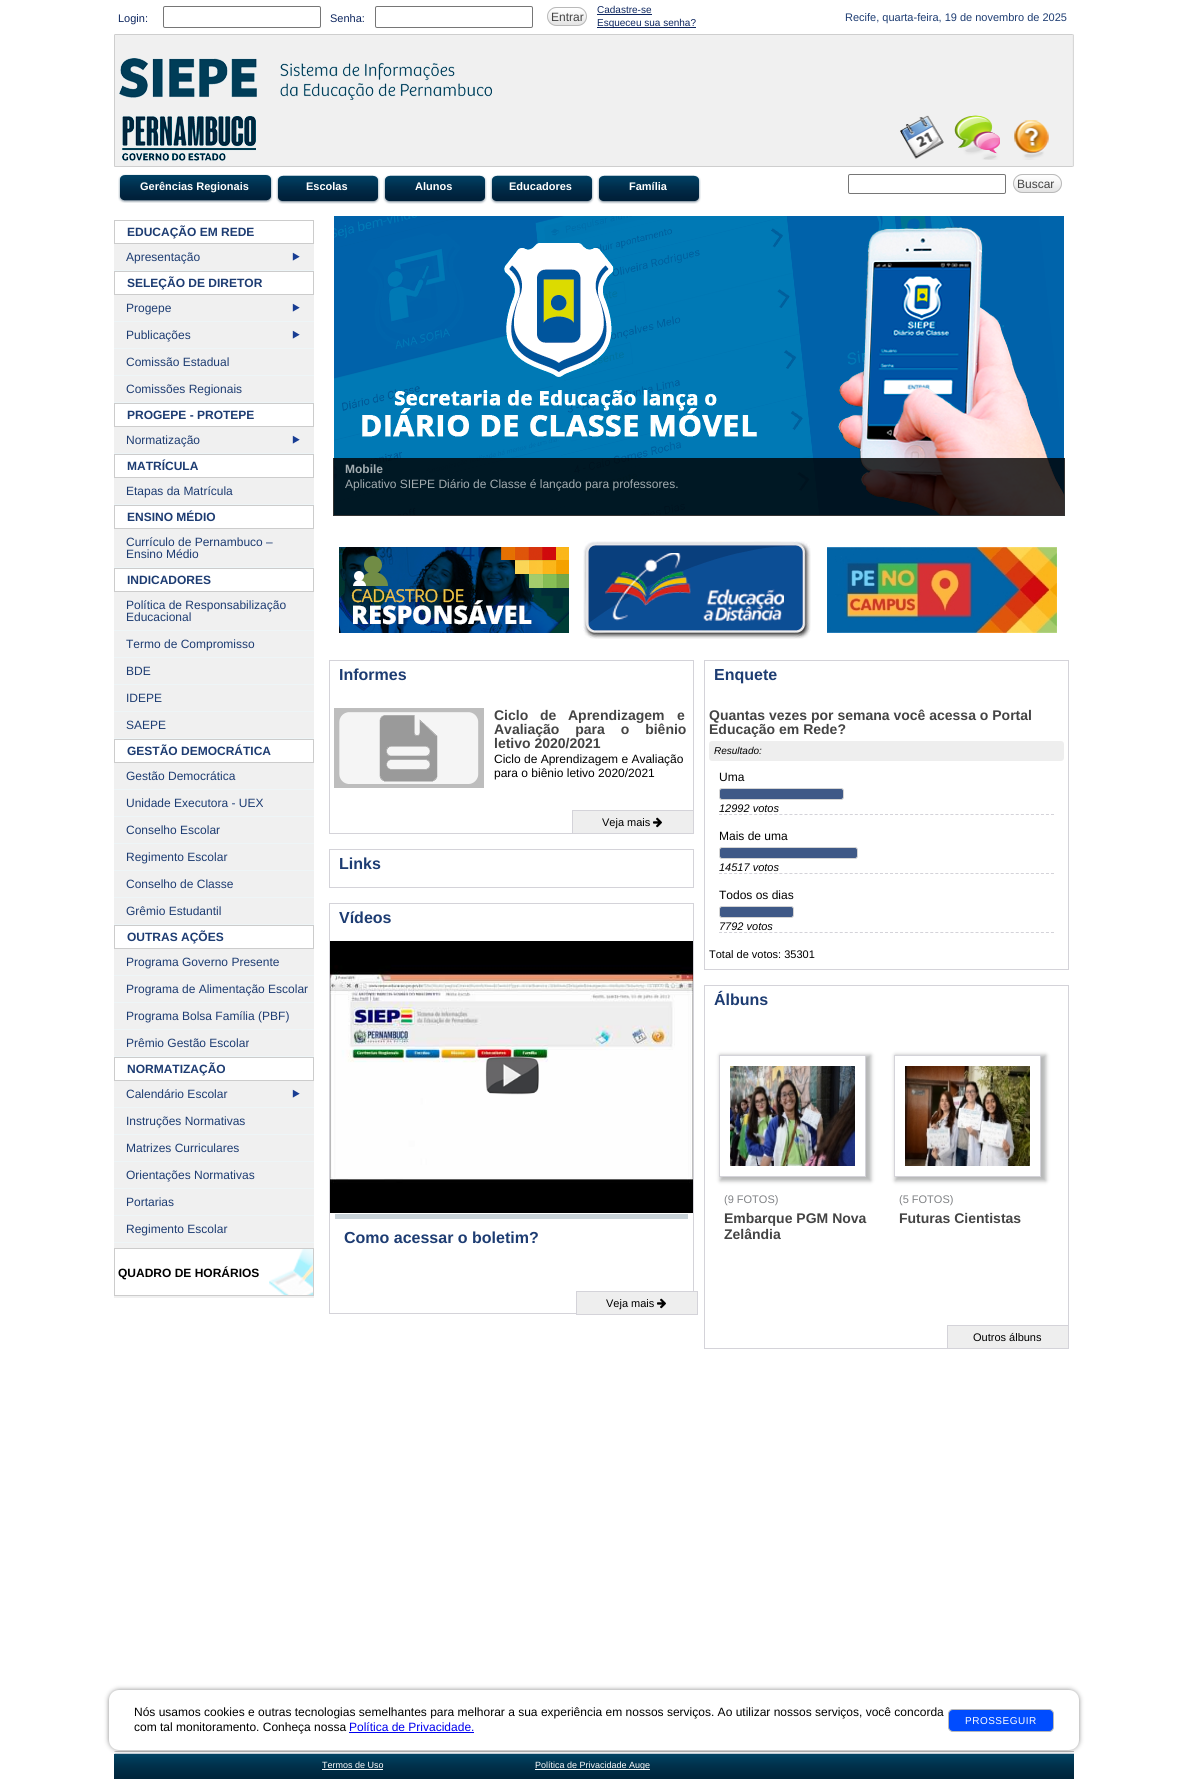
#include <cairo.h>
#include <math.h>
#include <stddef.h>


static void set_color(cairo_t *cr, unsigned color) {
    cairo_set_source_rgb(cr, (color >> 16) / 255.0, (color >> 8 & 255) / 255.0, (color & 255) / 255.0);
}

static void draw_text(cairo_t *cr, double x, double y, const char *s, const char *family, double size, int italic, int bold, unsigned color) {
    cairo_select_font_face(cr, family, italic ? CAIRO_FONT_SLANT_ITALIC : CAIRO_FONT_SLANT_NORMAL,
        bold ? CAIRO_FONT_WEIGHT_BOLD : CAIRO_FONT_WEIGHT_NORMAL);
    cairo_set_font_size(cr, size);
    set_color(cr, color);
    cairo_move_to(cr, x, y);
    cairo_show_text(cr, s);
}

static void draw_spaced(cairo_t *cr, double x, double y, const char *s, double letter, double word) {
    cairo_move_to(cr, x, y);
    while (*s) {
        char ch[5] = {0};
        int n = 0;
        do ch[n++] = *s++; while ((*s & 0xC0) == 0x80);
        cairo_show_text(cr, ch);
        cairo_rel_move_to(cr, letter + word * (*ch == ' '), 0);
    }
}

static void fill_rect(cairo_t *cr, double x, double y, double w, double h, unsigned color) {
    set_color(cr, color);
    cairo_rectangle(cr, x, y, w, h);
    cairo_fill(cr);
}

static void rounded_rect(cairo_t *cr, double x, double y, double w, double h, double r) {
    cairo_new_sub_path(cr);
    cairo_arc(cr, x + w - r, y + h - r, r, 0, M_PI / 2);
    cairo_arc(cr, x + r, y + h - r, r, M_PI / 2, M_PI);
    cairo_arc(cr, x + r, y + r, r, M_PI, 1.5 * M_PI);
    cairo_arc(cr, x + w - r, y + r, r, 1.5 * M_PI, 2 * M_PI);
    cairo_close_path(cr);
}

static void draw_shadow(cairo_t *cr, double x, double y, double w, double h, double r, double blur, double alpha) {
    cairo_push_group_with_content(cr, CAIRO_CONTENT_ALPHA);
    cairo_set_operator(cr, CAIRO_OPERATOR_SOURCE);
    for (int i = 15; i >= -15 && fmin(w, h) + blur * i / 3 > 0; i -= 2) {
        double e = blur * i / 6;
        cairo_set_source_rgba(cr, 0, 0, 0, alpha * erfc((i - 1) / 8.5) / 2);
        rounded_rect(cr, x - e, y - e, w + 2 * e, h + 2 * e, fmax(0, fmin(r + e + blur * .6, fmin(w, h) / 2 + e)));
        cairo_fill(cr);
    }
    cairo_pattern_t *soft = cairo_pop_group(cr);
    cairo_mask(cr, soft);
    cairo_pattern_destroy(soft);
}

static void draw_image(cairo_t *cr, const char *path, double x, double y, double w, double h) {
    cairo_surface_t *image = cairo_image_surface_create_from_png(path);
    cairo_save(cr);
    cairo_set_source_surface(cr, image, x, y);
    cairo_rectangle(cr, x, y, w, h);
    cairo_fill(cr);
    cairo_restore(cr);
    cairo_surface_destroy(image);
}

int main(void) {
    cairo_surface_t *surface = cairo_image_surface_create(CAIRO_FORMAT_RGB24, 1187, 1780);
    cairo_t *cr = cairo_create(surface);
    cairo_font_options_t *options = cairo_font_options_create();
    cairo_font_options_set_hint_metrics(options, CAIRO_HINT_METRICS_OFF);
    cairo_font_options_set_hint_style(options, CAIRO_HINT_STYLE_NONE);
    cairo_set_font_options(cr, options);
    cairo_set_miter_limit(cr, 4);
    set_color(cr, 0xFFFFFF);
    cairo_paint(cr);
    draw_image(cr, "assets/img1.png", 114, 34, 960, 133);
    draw_text(cr, 118, 22, "Login:", "Liberation Sans", 11, 0, 0, 0x0D265F);
    rounded_rect(cr, 163.5, 6.5, 157, 21, 1.5);
    set_color(cr, 0x767676);
    cairo_set_line_width(cr, 1);
    cairo_stroke(cr);
    draw_text(cr, 330, 22, "Senha:", "Liberation Sans", 11, 0, 0, 0x0D265F);
    rounded_rect(cr, 375.5, 6.5, 157, 21, 1.5);
    set_color(cr, 0x767676);
    cairo_stroke(cr);
    draw_image(cr, "assets/img2.png", 547, 7, 40, 19);
    rounded_rect(cr, 547.5, 7.5, 39, 18, 9);
    set_color(cr, 0xB9B9B9);
    cairo_stroke(cr);
    draw_text(cr, 551, 21, "Entrar", "Liberation Sans", 12, 0, 0, 0x444444);
    draw_text(cr, 597, 13, "Cadastre-se", "Liberation Sans", 10, 0, 0, 0x0D265F);
    fill_rect(cr, 597, 14, 55, 1, 0x0D265F);
    fill_rect(cr, 597, 27, 99, 1, 0x0D265F);
    draw_text(cr, 597, 26, "Esqueceu sua senha?", "Liberation Sans", 10, 0, 0, 0x0D265F);
    draw_text(cr, 845, 21, "Recife, quarta-feira, 19 de novembro de 2025", "Liberation Sans", 11, 0, 0, 0x1D3C72);
    draw_image(cr, "assets/img3.png", 119, 58, 373, 42);
    draw_image(cr, "assets/img4.png", 900, 115, 44, 44);
    draw_image(cr, "assets/img5.png", 954, 115, 46, 45);
    draw_image(cr, "assets/img6.png", 1014, 120, 35, 40);
    draw_image(cr, "assets/img7.png", 118, 174, 155, 29);
    draw_text(cr, 140, 190, "Gerências Regionais", "Liberation Sans", 11, 0, 1, 0xFFFFFF);
    draw_image(cr, "assets/img8.png", 276, 175, 104, 29);
    draw_text(cr, 306, 190, "Escolas", "Liberation Sans", 11, 0, 1, 0xFFFFFF);
    draw_image(cr, "assets/img8.png", 383, 175, 104, 29);
    draw_text(cr, 415, 190, "Alunos", "Liberation Sans", 11, 0, 1, 0xFFFFFF);
    draw_image(cr, "assets/img8.png", 490, 175, 104, 29);
    draw_text(cr, 509, 190, "Educadores", "Liberation Sans", 11, 0, 1, 0xFFFFFF);
    draw_image(cr, "assets/img8.png", 597, 175, 104, 29);
    draw_text(cr, 629, 190, "Família", "Liberation Sans", 11, 0, 1, 0xFFFFFF);
    rounded_rect(cr, 848.5, 174.5, 157, 19, 1.5);
    set_color(cr, 0x767676);
    cairo_stroke(cr);
    draw_image(cr, "assets/img9.png", 1013, 174, 49, 19);
    rounded_rect(cr, 1013.5, 174.5, 48, 18, 9);
    set_color(cr, 0xB9B9B9);
    cairo_stroke(cr);
    draw_text(cr, 1017, 188, "Buscar", "Liberation Sans", 12, 0, 0, 0x444444);
    fill_rect(cr, 114, 244, 200, 1054, 0xF0F0F0);
    cairo_rectangle(cr, 114.5, 220.5, 199, 23);
    set_color(cr, 0xCCCCCC);
    cairo_stroke(cr);
    draw_text(cr, 127, 236, "EDUCAÇÃO EM REDE", "Liberation Sans", 12, 0, 1, 0x1D3C72);
    draw_image(cr, "assets/img10.png", 292, 252, 8, 9);
    fill_rect(cr, 114, 270, 200, 1, 0xEEF5F7);
    draw_text(cr, 126, 261, "Apresentação", "Liberation Sans", 12, 0, 0, 0x1D3C72);
    set_color(cr, 0xFFFFFF);
    cairo_rectangle(cr, 114.5, 271.5, 199, 23);
    cairo_fill_preserve(cr);
    set_color(cr, 0xCCCCCC);
    cairo_stroke(cr);
    draw_text(cr, 127, 287, "SELEÇÃO DE DIRETOR", "Liberation Sans", 12, 0, 1, 0x1D3C72);
    draw_image(cr, "assets/img10.png", 292, 303, 8, 9);
    fill_rect(cr, 114, 321, 200, 1, 0xEEF5F7);
    draw_text(cr, 126, 312, "Progepe", "Liberation Sans", 12, 0, 0, 0x1D3C72);
    draw_image(cr, "assets/img10.png", 292, 330, 8, 9);
    fill_rect(cr, 114, 348, 200, 1, 0xEEF5F7);
    draw_text(cr, 126, 339, "Publicações", "Liberation Sans", 12, 0, 0, 0x1D3C72);
    fill_rect(cr, 114, 375, 200, 1, 0xEEF5F7);
    draw_text(cr, 126, 366, "Comissão Estadual", "Liberation Sans", 12, 0, 0, 0x1D3C72);
    fill_rect(cr, 114, 402, 200, 1, 0xEEF5F7);
    draw_text(cr, 126, 393, "Comissões Regionais", "Liberation Sans", 12, 0, 0, 0x1D3C72);
    set_color(cr, 0xFFFFFF);
    cairo_rectangle(cr, 114.5, 403.5, 199, 23);
    cairo_fill_preserve(cr);
    set_color(cr, 0xCCCCCC);
    cairo_stroke(cr);
    draw_text(cr, 127, 419, "PROGEPE - PROTEPE", "Liberation Sans", 12, 0, 1, 0x1D3C72);
    draw_image(cr, "assets/img10.png", 292, 435, 8, 9);
    fill_rect(cr, 114, 453, 200, 1, 0xEEF5F7);
    draw_text(cr, 126, 444, "Normatização", "Liberation Sans", 12, 0, 0, 0x1D3C72);
    set_color(cr, 0xFFFFFF);
    cairo_rectangle(cr, 114.5, 454.5, 199, 23);
    cairo_fill_preserve(cr);
    set_color(cr, 0xCCCCCC);
    cairo_stroke(cr);
    draw_text(cr, 127, 470, "MATRÍCULA", "Liberation Sans", 12, 0, 1, 0x1D3C72);
    fill_rect(cr, 114, 504, 200, 1, 0xEEF5F7);
    draw_text(cr, 126, 495, "Etapas da Matrícula", "Liberation Sans", 12, 0, 0, 0x1D3C72);
    set_color(cr, 0xFFFFFF);
    cairo_rectangle(cr, 114.5, 505.5, 199, 23);
    cairo_fill_preserve(cr);
    set_color(cr, 0xCCCCCC);
    cairo_stroke(cr);
    draw_text(cr, 127, 521, "ENSINO MÉDIO", "Liberation Sans", 12, 0, 1, 0x1D3C72);
    fill_rect(cr, 114, 567, 200, 1, 0xEEF5F7);
    draw_text(cr, 126, 546, "Currículo de Pernambuco –", "Liberation Sans", 12, 0, 0, 0x1D3C72);
    draw_text(cr, 126, 558, "Ensino Médio", "Liberation Sans", 12, 0, 0, 0x1D3C72);
    set_color(cr, 0xFFFFFF);
    cairo_rectangle(cr, 114.5, 568.5, 199, 23);
    cairo_fill_preserve(cr);
    set_color(cr, 0xCCCCCC);
    cairo_stroke(cr);
    draw_text(cr, 127, 584, "INDICADORES", "Liberation Sans", 12, 0, 1, 0x1D3C72);
    fill_rect(cr, 114, 630, 200, 1, 0xEEF5F7);
    draw_text(cr, 126, 609, "Política de Responsabilização", "Liberation Sans", 12, 0, 0, 0x1D3C72);
    draw_text(cr, 126, 621, "Educacional", "Liberation Sans", 12, 0, 0, 0x1D3C72);
    fill_rect(cr, 114, 657, 200, 1, 0xEEF5F7);
    draw_text(cr, 126, 648, "Termo de Compromisso", "Liberation Sans", 12, 0, 0, 0x1D3C72);
    fill_rect(cr, 114, 684, 200, 1, 0xEEF5F7);
    draw_text(cr, 126, 675, "BDE", "Liberation Sans", 12, 0, 0, 0x1D3C72);
    fill_rect(cr, 114, 711, 200, 1, 0xEEF5F7);
    draw_text(cr, 126, 702, "IDEPE", "Liberation Sans", 12, 0, 0, 0x1D3C72);
    fill_rect(cr, 114, 738, 200, 1, 0xEEF5F7);
    draw_text(cr, 126, 729, "SAEPE", "Liberation Sans", 12, 0, 0, 0x1D3C72);
    set_color(cr, 0xFFFFFF);
    cairo_rectangle(cr, 114.5, 739.5, 199, 23);
    cairo_fill_preserve(cr);
    set_color(cr, 0xCCCCCC);
    cairo_stroke(cr);
    draw_text(cr, 127, 755, "GESTÃO DEMOCRÁTICA", "Liberation Sans", 12, 0, 1, 0x1D3C72);
    fill_rect(cr, 114, 789, 200, 1, 0xEEF5F7);
    draw_text(cr, 126, 780, "Gestão Democrática", "Liberation Sans", 12, 0, 0, 0x1D3C72);
    fill_rect(cr, 114, 816, 200, 1, 0xEEF5F7);
    draw_text(cr, 126, 807, "Unidade Executora - UEX", "Liberation Sans", 12, 0, 0, 0x1D3C72);
    fill_rect(cr, 114, 843, 200, 1, 0xEEF5F7);
    draw_text(cr, 126, 834, "Conselho Escolar", "Liberation Sans", 12, 0, 0, 0x1D3C72);
    fill_rect(cr, 114, 870, 200, 1, 0xEEF5F7);
    draw_text(cr, 126, 861, "Regimento Escolar", "Liberation Sans", 12, 0, 0, 0x1D3C72);
    fill_rect(cr, 114, 897, 200, 1, 0xEEF5F7);
    draw_text(cr, 126, 888, "Conselho de Classe", "Liberation Sans", 12, 0, 0, 0x1D3C72);
    fill_rect(cr, 114, 924, 200, 1, 0xEEF5F7);
    draw_text(cr, 126, 915, "Grêmio Estudantil", "Liberation Sans", 12, 0, 0, 0x1D3C72);
    set_color(cr, 0xFFFFFF);
    cairo_rectangle(cr, 114.5, 925.5, 199, 23);
    cairo_fill_preserve(cr);
    set_color(cr, 0xCCCCCC);
    cairo_stroke(cr);
    draw_text(cr, 127, 941, "OUTRAS AÇÕES", "Liberation Sans", 12, 0, 1, 0x1D3C72);
    fill_rect(cr, 114, 975, 200, 1, 0xEEF5F7);
    draw_text(cr, 126, 966, "Programa Governo Presente", "Liberation Sans", 12, 0, 0, 0x1D3C72);
    fill_rect(cr, 114, 1002, 200, 1, 0xEEF5F7);
    draw_text(cr, 126, 993, "Programa de Alimentação Escolar", "Liberation Sans", 12, 0, 0, 0x1D3C72);
    fill_rect(cr, 114, 1029, 200, 1, 0xEEF5F7);
    draw_text(cr, 126, 1020, "Programa Bolsa Família (PBF)", "Liberation Sans", 12, 0, 0, 0x1D3C72);
    fill_rect(cr, 114, 1056, 200, 1, 0xEEF5F7);
    draw_text(cr, 126, 1047, "Prêmio Gestão Escolar", "Liberation Sans", 12, 0, 0, 0x1D3C72);
    set_color(cr, 0xFFFFFF);
    cairo_rectangle(cr, 114.5, 1057.5, 199, 23);
    cairo_fill_preserve(cr);
    set_color(cr, 0xCCCCCC);
    cairo_stroke(cr);
    draw_text(cr, 127, 1073, "NORMATIZAÇÃO", "Liberation Sans", 12, 0, 1, 0x1D3C72);
    draw_image(cr, "assets/img10.png", 292, 1089, 8, 9);
    fill_rect(cr, 114, 1107, 200, 1, 0xEEF5F7);
    draw_text(cr, 126, 1098, "Calendário Escolar", "Liberation Sans", 12, 0, 0, 0x1D3C72);
    fill_rect(cr, 114, 1134, 200, 1, 0xEEF5F7);
    draw_text(cr, 126, 1125, "Instruções Normativas", "Liberation Sans", 12, 0, 0, 0x1D3C72);
    fill_rect(cr, 114, 1161, 200, 1, 0xEEF5F7);
    draw_text(cr, 126, 1152, "Matrizes Curriculares", "Liberation Sans", 12, 0, 0, 0x1D3C72);
    fill_rect(cr, 114, 1188, 200, 1, 0xEEF5F7);
    draw_text(cr, 126, 1179, "Orientações Normativas", "Liberation Sans", 12, 0, 0, 0x1D3C72);
    fill_rect(cr, 114, 1215, 200, 1, 0xEEF5F7);
    draw_text(cr, 126, 1206, "Portarias", "Liberation Sans", 12, 0, 0, 0x1D3C72);
    fill_rect(cr, 114, 1242, 200, 1, 0xEEF5F7);
    draw_text(cr, 126, 1233, "Regimento Escolar", "Liberation Sans", 12, 0, 0, 0x1D3C72);
    fill_rect(cr, 115, 1249, 198, 46, 0xFFFFFF);
    draw_image(cr, "assets/img11.png", 269, 1249, 44, 46);
    cairo_rectangle(cr, 114.5, 1248.5, 199, 47);
    set_color(cr, 0xCCCCCC);
    cairo_stroke(cr);
    draw_text(cr, 118, 1277, "QUADRO DE HORÁRIOS", "Liberation Sans", 12, 0, 1, 0x000000);
    draw_image(cr, "assets/img12.png", 334, 216, 730, 299);
    cairo_set_source_rgba(cr, 0, 0, 0, 0.8);
    cairo_rectangle(cr, 333, 458, 732, 58);
    cairo_fill(cr);
    draw_text(cr, 345, 473, "Mobile", "Liberation Sans", 12, 0, 1, 0xA3ACB0);
    draw_text(cr, 345, 488, "Aplicativo SIEPE Diário de Classe é lançado para professores.", "Liberation Sans", 12, 0, 0, 0xA3ACB0);
    draw_image(cr, "assets/img13.png", 339, 547, 230, 86);
    draw_image(cr, "assets/img14.png", 583, 541, 228, 98);
    draw_image(cr, "assets/img15.png", 827, 547, 230, 86);
    cairo_rectangle(cr, 329.5, 660.5, 364, 173);
    set_color(cr, 0xD4D3D9);
    cairo_stroke(cr);
    draw_text(cr, 339, 680, "Informes", "Liberation Sans", 16, 0, 1, 0x1D3C72);
    draw_image(cr, "assets/img16.png", 334, 708, 150, 80);
    draw_text(cr, 494, 720, "Ciclo", "Liberation Sans", 14, 0, 1, 0x444444);
    draw_text(cr, 540, 720, "de", "Liberation Sans", 14, 0, 1, 0x444444);
    draw_text(cr, 568, 720, "Aprendizagem", "Liberation Sans", 14, 0, 1, 0x444444);
    draw_text(cr, 677, 720, "e", "Liberation Sans", 14, 0, 1, 0x444444);
    draw_spaced(cr, 494, 734, "Avaliação para o biênio", 0, 12);
    draw_text(cr, 494, 748, "letivo 2020/2021", "Liberation Sans", 14, 0, 1, 0x444444);
    draw_text(cr, 494, 763, "Ciclo de Aprendizagem e Avaliação", "Liberation Sans", 12, 0, 0, 0x000000);
    draw_text(cr, 494, 777, "para o biênio letivo 2020/2021", "Liberation Sans", 12, 0, 0, 0x000000);
    set_color(cr, 0xEEEEEE);
    cairo_rectangle(cr, 572.5, 810.5, 121, 23);
    cairo_fill_preserve(cr);
    set_color(cr, 0xD4D3D9);
    cairo_stroke(cr);
    draw_text(cr, 602, 826, "Veja mais", "Liberation Sans", 11, 0, 0, 0x000000);
    draw_image(cr, "assets/img17.png", 653, 817, 9, 11);
    cairo_rectangle(cr, 329.5, 849.5, 364, 38);
    set_color(cr, 0xD4D3D9);
    cairo_stroke(cr);
    draw_text(cr, 339, 869, "Links", "Liberation Sans", 16, 0, 1, 0x1D3C72);
    cairo_rectangle(cr, 329.5, 903.5, 364, 410);
    set_color(cr, 0xD4D3D9);
    cairo_stroke(cr);
    draw_text(cr, 339, 923, "Vídeos", "Liberation Sans", 16, 0, 1, 0x1D3C72);
    draw_image(cr, "assets/img18.png", 330, 941, 363, 272);
    draw_image(cr, "assets/img19.png", 485, 1056, 54, 39);
    fill_rect(cr, 335, 1214, 353, 5, 0xC8D2D8);
    draw_text(cr, 344, 1243, "Como acessar o boletim?", "Liberation Sans", 16, 0, 1, 0x1D3C72);
    set_color(cr, 0xEEEEEE);
    cairo_rectangle(cr, 576.5, 1291.5, 121, 23);
    cairo_fill_preserve(cr);
    set_color(cr, 0xD4D3D9);
    cairo_stroke(cr);
    draw_text(cr, 606, 1307, "Veja mais", "Liberation Sans", 11, 0, 0, 0x000000);
    draw_image(cr, "assets/img17.png", 657, 1298, 9, 11);
    cairo_rectangle(cr, 704.5, 660.5, 364, 309);
    set_color(cr, 0xD4D3D9);
    cairo_stroke(cr);
    draw_text(cr, 714, 680, "Enquete", "Liberation Sans", 16, 0, 1, 0x1D3C72);
    draw_text(cr, 709, 720, "Quantas vezes por semana você acessa o Portal", "Liberation Sans", 14, 0, 1, 0x444444);
    draw_text(cr, 709, 734, "Educação em Rede?", "Liberation Sans", 14, 0, 1, 0x444444);
    set_color(cr, 0xEEEEEE);
    rounded_rect(cr, 709, 741, 355, 20, 3);
    cairo_fill(cr);
    draw_text(cr, 714, 754, "Resultado:", "Liberation Sans", 10, 1, 0, 0x000000);
    cairo_new_path(cr);
    cairo_move_to(cr, 719, 814.5);
    cairo_line_to(cr, 1054, 814.5);
    set_color(cr, 0xD4D3D9);
    cairo_set_dash(cr, (double[]){3, 2.03}, 2, 0);
    cairo_stroke(cr);
    draw_text(cr, 719, 781, "Uma", "Liberation Sans", 12, 0, 0, 0x000000);
    set_color(cr, 0x3F5987);
    rounded_rect(cr, 719.5, 788.5, 124, 11, 2.5);
    cairo_fill_preserve(cr);
    set_color(cr, 0xD4D4D4);
    cairo_set_dash(cr, NULL, 0, 0);
    cairo_stroke(cr);
    draw_text(cr, 719, 812, "12992 votos", "Liberation Sans", 11, 1, 0, 0x000000);
    cairo_new_path(cr);
    cairo_move_to(cr, 719, 873.5);
    cairo_line_to(cr, 1054, 873.5);
    set_color(cr, 0xD4D3D9);
    cairo_set_dash(cr, (double[]){3, 2.03}, 2, 0);
    cairo_stroke(cr);
    draw_text(cr, 719, 840, "Mais de uma", "Liberation Sans", 12, 0, 0, 0x000000);
    set_color(cr, 0x3F5987);
    rounded_rect(cr, 719.5, 847.5, 138, 11, 2.5);
    cairo_fill_preserve(cr);
    set_color(cr, 0xD4D4D4);
    cairo_set_dash(cr, NULL, 0, 0);
    cairo_stroke(cr);
    draw_text(cr, 719, 871, "14517 votos", "Liberation Sans", 11, 1, 0, 0x000000);
    cairo_new_path(cr);
    cairo_move_to(cr, 719, 932.5);
    cairo_line_to(cr, 1054, 932.5);
    set_color(cr, 0xD4D3D9);
    cairo_set_dash(cr, (double[]){3, 2.03}, 2, 0);
    cairo_stroke(cr);
    draw_text(cr, 719, 899, "Todos os dias", "Liberation Sans", 12, 0, 0, 0x000000);
    set_color(cr, 0x3F5987);
    rounded_rect(cr, 719.5, 906.5, 74, 11, 2.5);
    cairo_fill_preserve(cr);
    set_color(cr, 0xD4D4D4);
    cairo_set_dash(cr, NULL, 0, 0);
    cairo_stroke(cr);
    draw_text(cr, 719, 930, "7792 votos", "Liberation Sans", 11, 1, 0, 0x000000);
    draw_text(cr, 709, 958, "Total de votos: 35301", "Liberation Sans", 11, 0, 0, 0x000000);
    cairo_rectangle(cr, 704.5, 985.5, 364, 363);
    set_color(cr, 0xD4D3D9);
    cairo_stroke(cr);
    draw_text(cr, 714, 1005, "Álbuns", "Liberation Sans", 16, 0, 1, 0x1D3C72);
    cairo_save(cr);
    cairo_set_fill_rule(cr, CAIRO_FILL_RULE_EVEN_ODD);
    cairo_new_path(cr);
    cairo_move_to(cr, 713, 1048);
    cairo_line_to(cr, 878, 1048);
    cairo_line_to(cr, 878, 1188);
    cairo_line_to(cr, 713, 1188);
    cairo_close_path(cr);
    cairo_move_to(cr, 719, 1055);
    cairo_line_to(cr, 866, 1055);
    cairo_line_to(cr, 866, 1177);
    cairo_line_to(cr, 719, 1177);
    cairo_close_path(cr);
    cairo_clip(cr);
    set_color(cr, 0xB6B7B7);
    draw_shadow(cr, 720, 1055, 151, 126, 0, 2, 1);
    cairo_restore(cr);
    cairo_rectangle(cr, 719.5, 1055.5, 146, 121);
    set_color(cr, 0xD4D3D9);
    cairo_stroke(cr);
    draw_image(cr, "assets/img20.png", 730, 1066, 125, 100);
    draw_text(cr, 724, 1203, "(9 FOTOS)", "Liberation Sans", 11, 0, 0, 0x808285);
    draw_text(cr, 724, 1223, "Embarque PGM Nova", "Liberation Sans", 14, 0, 1, 0x444444);
    draw_text(cr, 724, 1239, "Zelândia", "Liberation Sans", 14, 0, 1, 0x444444);
    cairo_save(cr);
    cairo_set_fill_rule(cr, CAIRO_FILL_RULE_EVEN_ODD);
    cairo_new_path(cr);
    cairo_move_to(cr, 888, 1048);
    cairo_line_to(cr, 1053, 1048);
    cairo_line_to(cr, 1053, 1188);
    cairo_line_to(cr, 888, 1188);
    cairo_close_path(cr);
    cairo_move_to(cr, 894, 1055);
    cairo_line_to(cr, 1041, 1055);
    cairo_line_to(cr, 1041, 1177);
    cairo_line_to(cr, 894, 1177);
    cairo_close_path(cr);
    cairo_clip(cr);
    set_color(cr, 0xB6B7B7);
    draw_shadow(cr, 895, 1055, 151, 126, 0, 2, 1);
    cairo_restore(cr);
    cairo_rectangle(cr, 894.5, 1055.5, 146, 121);
    set_color(cr, 0xD4D3D9);
    cairo_stroke(cr);
    draw_image(cr, "assets/img21.png", 905, 1066, 125, 100);
    draw_text(cr, 899, 1203, "(5 FOTOS)", "Liberation Sans", 11, 0, 0, 0x808285);
    draw_text(cr, 899, 1223, "Futuras Cientistas", "Liberation Sans", 14, 0, 1, 0x444444);
    set_color(cr, 0xEEEEEE);
    cairo_rectangle(cr, 947.5, 1325.5, 121, 23);
    cairo_fill_preserve(cr);
    set_color(cr, 0xD4D3D9);
    cairo_stroke(cr);
    draw_text(cr, 973, 1341, "Outros álbuns", "Liberation Sans", 11, 0, 0, 0x000000);
    draw_image(cr, "assets/img22.png", 114, 1751, 960, 28);
    set_color(cr, 0x888888);
    draw_shadow(cr, 109, 1690, 970, 60, 10, 2.5, 1);
    set_color(cr, 0xFFFFFF);
    rounded_rect(cr, 109, 1690, 970, 60, 10);
    cairo_fill(cr);
    draw_text(cr, 134, 1716, "Nós usamos cookies e outras tecnologias semelhantes para melhorar a sua experiência em nossos serviços. Ao utilizar nossos serviços, você concorda", "Liberation Sans", 12, 0, 0, 0x000000);
    draw_text(cr, 134, 1731, "com tal monitoramento. Conheça nossa", "Liberation Sans", 12, 0, 0, 0x000000);
    draw_text(cr, 349, 1731, "Política de Privacidade.", "Liberation Sans", 12, 0, 0, 0x0000EE);
    fill_rect(cr, 349, 1732, 125, 1, 0x0000EE);
    set_color(cr, 0x004CFF);
    rounded_rect(cr, 948.5, 1709.5, 105, 22, 4.5);
    cairo_fill_preserve(cr);
    set_color(cr, 0xB9B9B9);
    cairo_stroke(cr);
    cairo_set_font_size(cr, 10);
    set_color(cr, 0xFFFFFF);
    draw_spaced(cr, 965, 1724, "PROSSEGUIR", 0.5, 0);
    draw_text(cr, 322, 1768, "Termos de Uso", "Liberation Sans", 9, 0, 0, 0xFFFFFF);
    fill_rect(cr, 322, 1769, 61, 1, 0xFFFFFF);
    fill_rect(cr, 535, 1769, 115, 1, 0xFFFFFF);
    draw_text(cr, 535, 1768, "Política de Privacidade Auge", "Liberation Sans", 9, 0, 0, 0xFFFFFF);
    cairo_surface_write_to_png(surface, "output.png");
    cairo_font_options_destroy(options);
    cairo_destroy(cr);
    cairo_surface_destroy(surface);
    return 0;
}
